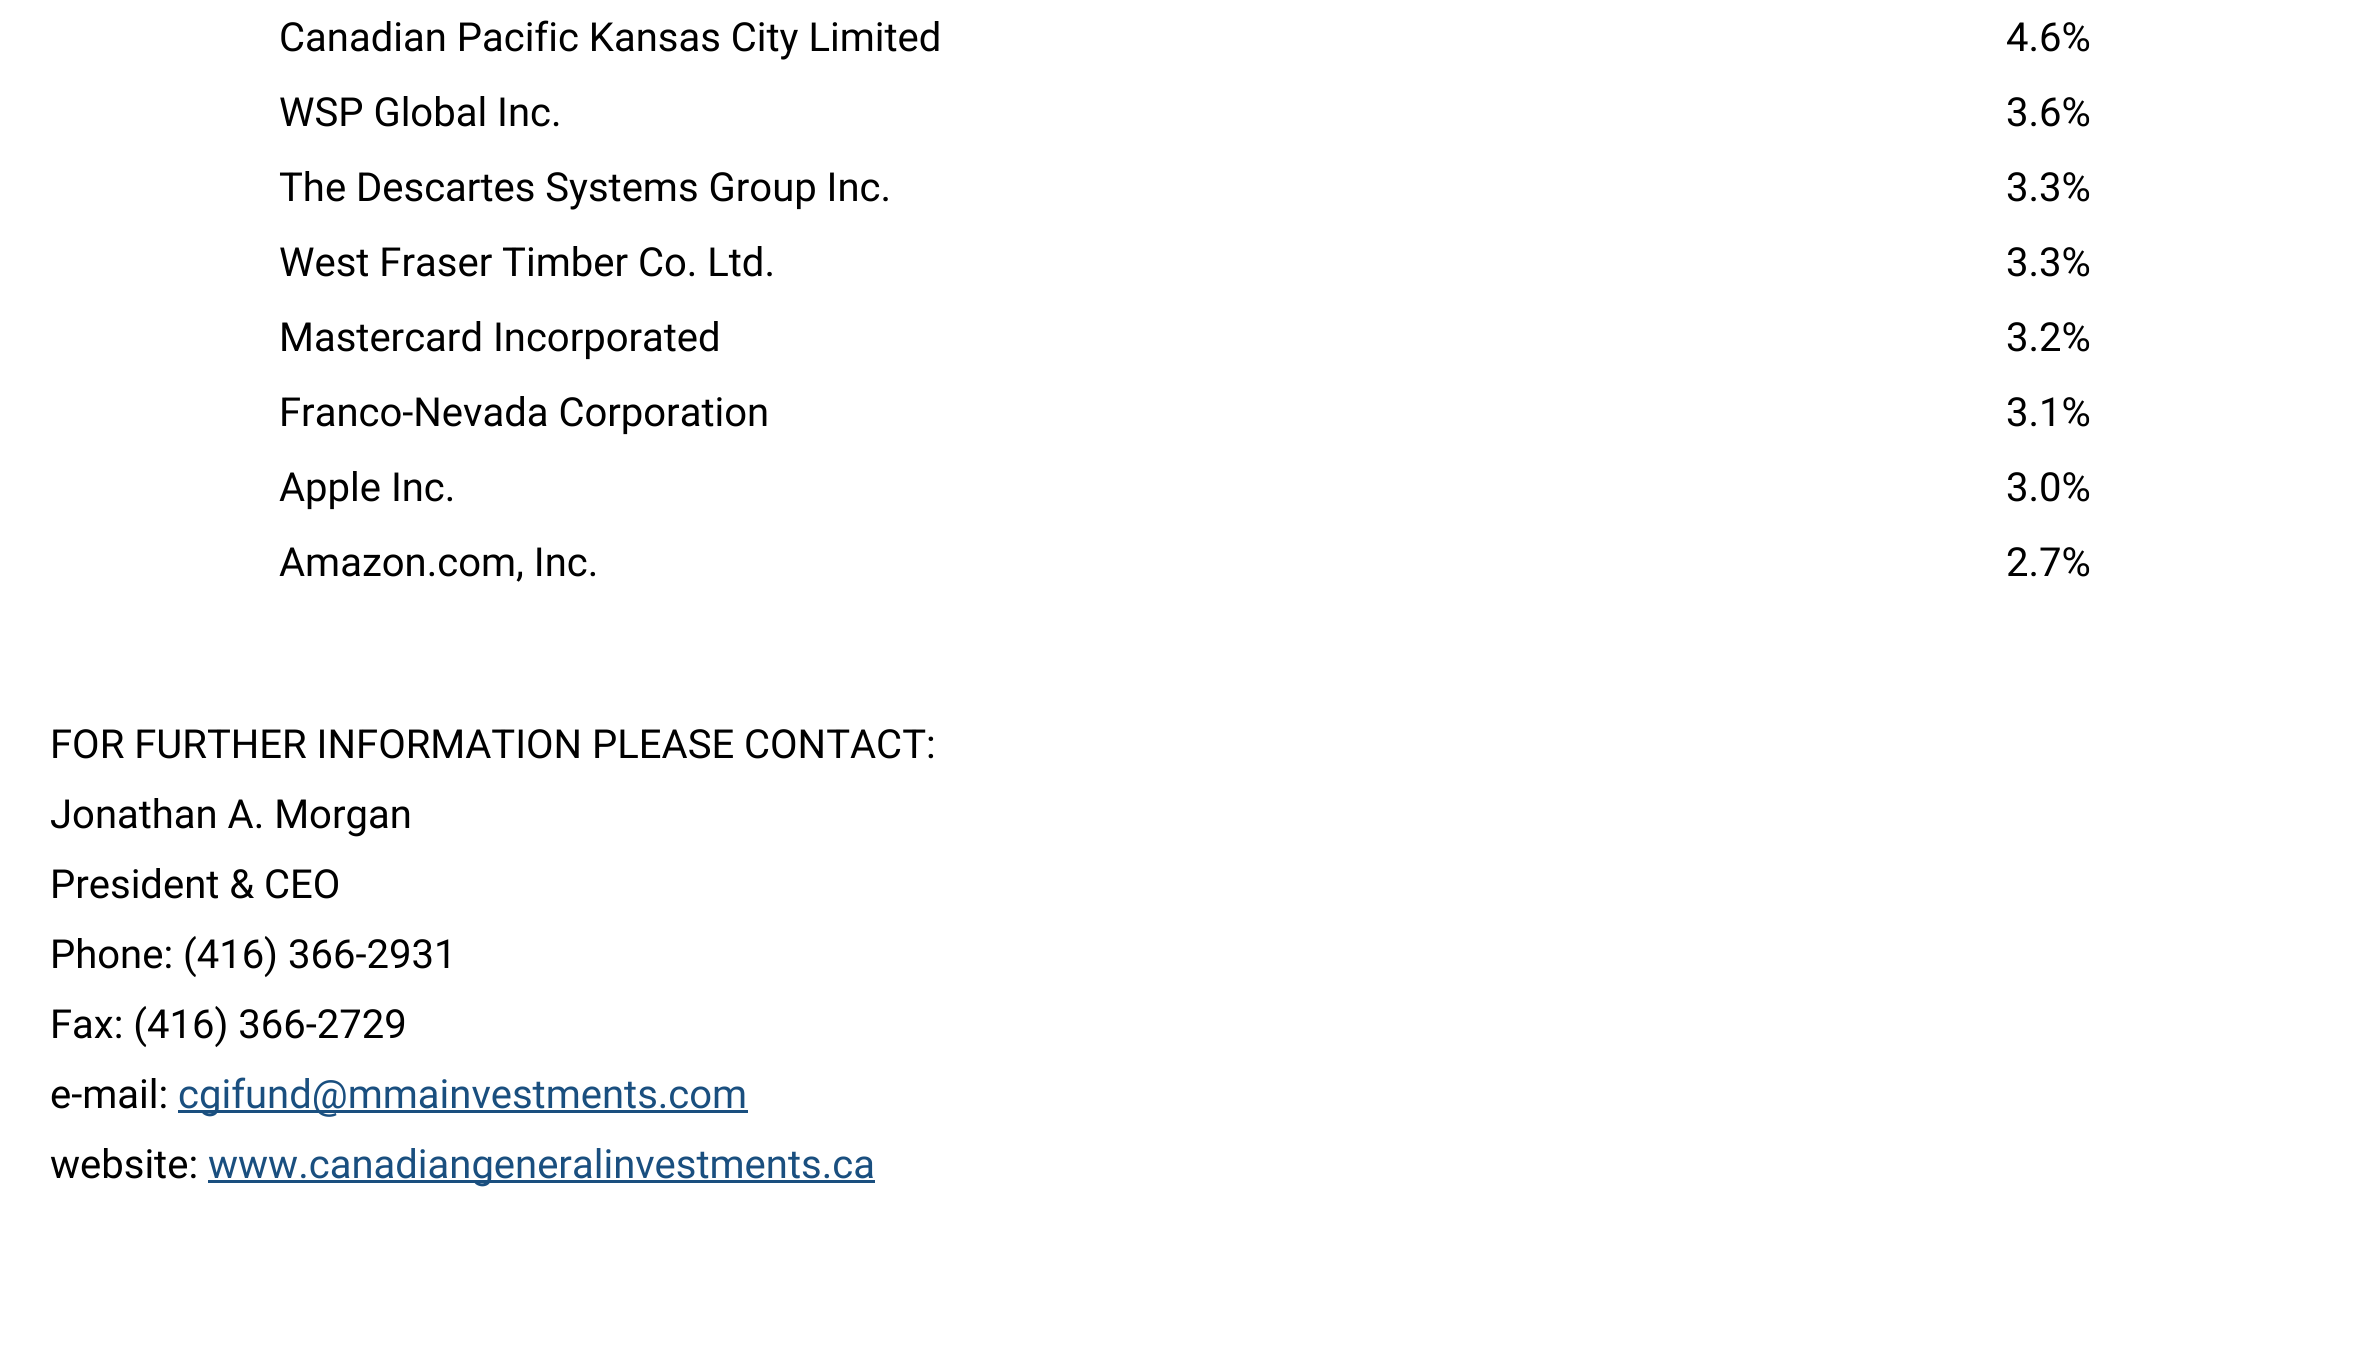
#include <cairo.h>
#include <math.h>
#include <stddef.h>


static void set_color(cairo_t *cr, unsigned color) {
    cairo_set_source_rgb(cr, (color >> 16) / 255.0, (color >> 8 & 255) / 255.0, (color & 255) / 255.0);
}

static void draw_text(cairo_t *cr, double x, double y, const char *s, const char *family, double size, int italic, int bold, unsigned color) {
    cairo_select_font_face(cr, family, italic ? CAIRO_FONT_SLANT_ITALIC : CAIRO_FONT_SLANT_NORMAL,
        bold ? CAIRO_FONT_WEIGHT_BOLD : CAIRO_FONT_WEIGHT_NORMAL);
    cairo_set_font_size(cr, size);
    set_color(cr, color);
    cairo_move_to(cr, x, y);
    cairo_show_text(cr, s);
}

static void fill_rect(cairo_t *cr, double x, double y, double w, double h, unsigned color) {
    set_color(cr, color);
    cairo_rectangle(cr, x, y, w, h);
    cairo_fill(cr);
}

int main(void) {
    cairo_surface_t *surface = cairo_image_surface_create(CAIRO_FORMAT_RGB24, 2369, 1347);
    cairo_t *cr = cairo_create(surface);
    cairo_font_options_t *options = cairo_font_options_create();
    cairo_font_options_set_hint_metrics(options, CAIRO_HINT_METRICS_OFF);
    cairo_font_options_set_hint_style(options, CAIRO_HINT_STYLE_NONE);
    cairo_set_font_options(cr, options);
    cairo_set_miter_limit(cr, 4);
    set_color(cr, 0xFFFFFF);
    cairo_paint(cr);
    draw_text(cr, 279, 51, "Canadian Pacific Kansas City Limited", "Roboto", 40, 0, 0, 0x000000);
    draw_text(cr, 2006, 51, "4.6%", "Roboto", 40, 0, 0, 0x000000);
    draw_text(cr, 279, 126, "WSP Global Inc.", "Roboto", 40, 0, 0, 0x000000);
    draw_text(cr, 2006, 126, "3.6%", "Roboto", 40, 0, 0, 0x000000);
    draw_text(cr, 279, 201, "The Descartes Systems Group Inc.", "Roboto", 40, 0, 0, 0x000000);
    draw_text(cr, 2006, 201, "3.3%", "Roboto", 40, 0, 0, 0x000000);
    draw_text(cr, 279, 276, "West Fraser Timber Co. Ltd.", "Roboto", 40, 0, 0, 0x000000);
    draw_text(cr, 2006, 276, "3.3%", "Roboto", 40, 0, 0, 0x000000);
    draw_text(cr, 279, 351, "Mastercard Incorporated", "Roboto", 40, 0, 0, 0x000000);
    draw_text(cr, 2006, 351, "3.2%", "Roboto", 40, 0, 0, 0x000000);
    draw_text(cr, 279, 426, "Franco-Nevada Corporation", "Roboto", 40, 0, 0, 0x000000);
    draw_text(cr, 2006, 426, "3.1%", "Roboto", 40, 0, 0, 0x000000);
    draw_text(cr, 279, 501, "Apple Inc.", "Roboto", 40, 0, 0, 0x000000);
    draw_text(cr, 2006, 501, "3.0%", "Roboto", 40, 0, 0, 0x000000);
    draw_text(cr, 279, 576, "Amazon.com, Inc.", "Roboto", 40, 0, 0, 0x000000);
    draw_text(cr, 2006, 576, "2.7%", "Roboto", 40, 0, 0, 0x000000);
    draw_text(cr, 50, 758, "FOR FURTHER INFORMATION PLEASE CONTACT:", "Roboto", 40, 0, 0, 0x000000);
    draw_text(cr, 50, 828, "Jonathan A. Morgan", "Roboto", 40, 0, 0, 0x000000);
    draw_text(cr, 50, 898, "President & CEO", "Roboto", 40, 0, 0, 0x000000);
    draw_text(cr, 50, 968, "Phone: (416) 366-2931", "Roboto", 40, 0, 0, 0x000000);
    draw_text(cr, 50, 1038, "Fax: (416) 366-2729", "Roboto", 40, 0, 0, 0x000000);
    draw_text(cr, 50, 1108, "e-mail:", "Roboto", 40, 0, 0, 0x000000);
    fill_rect(cr, 178, 1110, 570, 3, 0x1A4F7F);
    draw_text(cr, 178, 1108, "cgifund@mmainvestments.com", "Roboto", 40, 0, 0, 0x1A4F7F);
    draw_text(cr, 50, 1178, "website:", "Roboto", 40, 0, 0, 0x000000);
    fill_rect(cr, 208, 1180, 667, 3, 0x1A4F7F);
    draw_text(cr, 208, 1178, "www.canadiangeneralinvestments.ca", "Roboto", 40, 0, 0, 0x1A4F7F);
    cairo_surface_write_to_png(surface, "output.png");
    cairo_font_options_destroy(options);
    cairo_destroy(cr);
    cairo_surface_destroy(surface);
    return 0;
}
